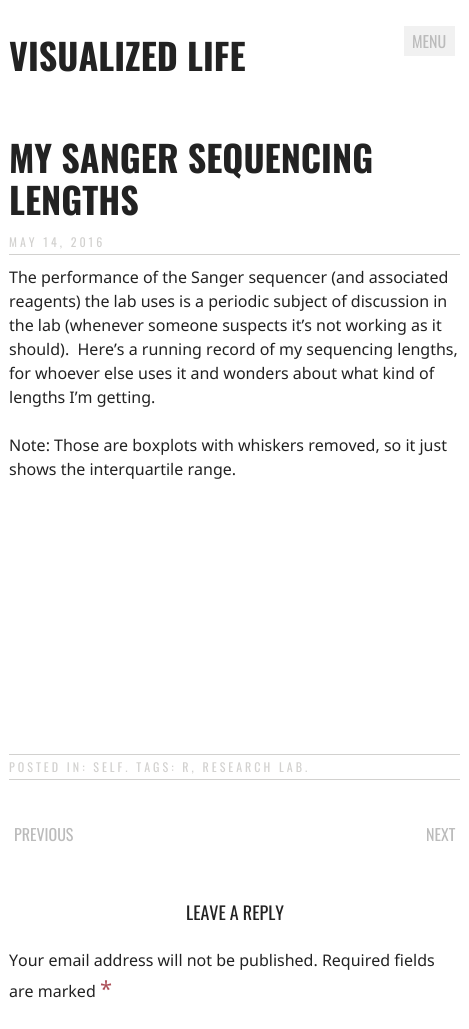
#include <cairo.h>
#include <math.h>
#include <stddef.h>


static void set_color(cairo_t *cr, unsigned color) {
    cairo_set_source_rgb(cr, (color >> 16) / 255.0, (color >> 8 & 255) / 255.0, (color & 255) / 255.0);
}

static void draw_text(cairo_t *cr, double x, double y, const char *s, const char *family, double size, int italic, int bold, unsigned color) {
    cairo_select_font_face(cr, family, italic ? CAIRO_FONT_SLANT_ITALIC : CAIRO_FONT_SLANT_NORMAL,
        bold ? CAIRO_FONT_WEIGHT_BOLD : CAIRO_FONT_WEIGHT_NORMAL);
    cairo_set_font_size(cr, size);
    set_color(cr, color);
    cairo_move_to(cr, x, y);
    cairo_show_text(cr, s);
}

static void draw_spaced(cairo_t *cr, double x, double y, const char *s, double letter, double word) {
    cairo_move_to(cr, x, y);
    while (*s) {
        char ch[5] = {0};
        int n = 0;
        do ch[n++] = *s++; while ((*s & 0xC0) == 0x80);
        cairo_show_text(cr, ch);
        cairo_rel_move_to(cr, letter + word * (*ch == ' '), 0);
    }
}

static void fill_rect(cairo_t *cr, double x, double y, double w, double h, unsigned color) {
    set_color(cr, color);
    cairo_rectangle(cr, x, y, w, h);
    cairo_fill(cr);
}

int main(void) {
    cairo_surface_t *surface = cairo_image_surface_create(CAIRO_FORMAT_RGB24, 469, 1029);
    cairo_t *cr = cairo_create(surface);
    cairo_font_options_t *options = cairo_font_options_create();
    cairo_font_options_set_hint_metrics(options, CAIRO_HINT_METRICS_OFF);
    cairo_font_options_set_hint_style(options, CAIRO_HINT_STYLE_NONE);
    cairo_set_font_options(cr, options);
    cairo_set_miter_limit(cr, 4);
    set_color(cr, 0xFFFFFF);
    cairo_paint(cr);
    draw_text(cr, 9, 71, "VISUALIZED LIFE", "Oswald", 36, 0, 1, 0x222222);
    fill_rect(cr, 404, 26, 51, 30, 0xF1F1F1);
    draw_text(cr, 412, 48, "MENU", "Oswald", 16, 0, 0, 0xBBBBBB);
    draw_text(cr, 9, 173, "MY SANGER SEQUENCING", "Oswald", 36, 0, 1, 0x222222);
    draw_text(cr, 9, 215, "LENGTHS", "Oswald", 36, 0, 1, 0x222222);
    fill_rect(cr, 9, 254, 451, 1, 0xD2D1CF);
    cairo_select_font_face(cr, "Oswald", CAIRO_FONT_SLANT_NORMAL, CAIRO_FONT_WEIGHT_NORMAL);
    cairo_set_font_size(cr, 12);
    draw_spaced(cr, 9, 247, "MAY 14, 2016", 3, 0);
    draw_text(cr, 9, 283, "The performance of the Sanger sequencer (and associated", "Noto Sans", 16, 0, 0, 0x222222);
    draw_text(cr, 9, 307, "reagents) the lab uses is a periodic subject of discussion in", "Noto Sans", 16, 0, 0, 0x222222);
    draw_text(cr, 9, 331, "the lab (whenever someone suspects it’s not working as it", "Noto Sans", 16, 0, 0, 0x222222);
    draw_text(cr, 9, 355, "should).  Here’s a running record of my sequencing lengths,", "Noto Sans", 16, 0, 0, 0x222222);
    draw_text(cr, 9, 379, "for whoever else uses it and wonders about what kind of", "Noto Sans", 16, 0, 0, 0x222222);
    draw_text(cr, 9, 403, "lengths I’m getting.", "Noto Sans", 16, 0, 0, 0x222222);
    draw_text(cr, 9, 451, "Note: Those are boxplots with whiskers removed, so it just", "Noto Sans", 16, 0, 0, 0x222222);
    draw_text(cr, 9, 475, "shows the interquartile range.", "Noto Sans", 16, 0, 0, 0x222222);
    fill_rect(cr, 9, 754, 451, 1, 0xD2D1CF);
    fill_rect(cr, 9, 779, 451, 1, 0xD2D1CF);
    cairo_select_font_face(cr, "Oswald", CAIRO_FONT_SLANT_NORMAL, CAIRO_FONT_WEIGHT_NORMAL);
    cairo_set_font_size(cr, 12);
    draw_spaced(cr, 9, 772, "POSTED IN: SELF. TAGS: R, RESEARCH LAB.", 3, 0);
    draw_text(cr, 14, 841, "PREVIOUS", "Oswald", 16, 0, 0, 0xBBBBBB);
    draw_text(cr, 426, 841, "NEXT", "Oswald", 16, 0, 0, 0xBBBBBB);
    draw_text(cr, 186, 920, "LEAVE A REPLY", "Oswald", 18, 0, 0, 0x222222);
    draw_text(cr, 9, 966, "Your email address will not be published. Required fields", "Noto Sans", 16, 0, 0, 0x222222);
    draw_text(cr, 9, 997, "are marked", "Noto Sans", 16, 0, 0, 0x222222);
    draw_text(cr, 100, 997, "*", "Noto Sans", 22, 0, 0, 0xAC4F57);
    cairo_surface_write_to_png(surface, "output.png");
    cairo_font_options_destroy(options);
    cairo_destroy(cr);
    cairo_surface_destroy(surface);
    return 0;
}
